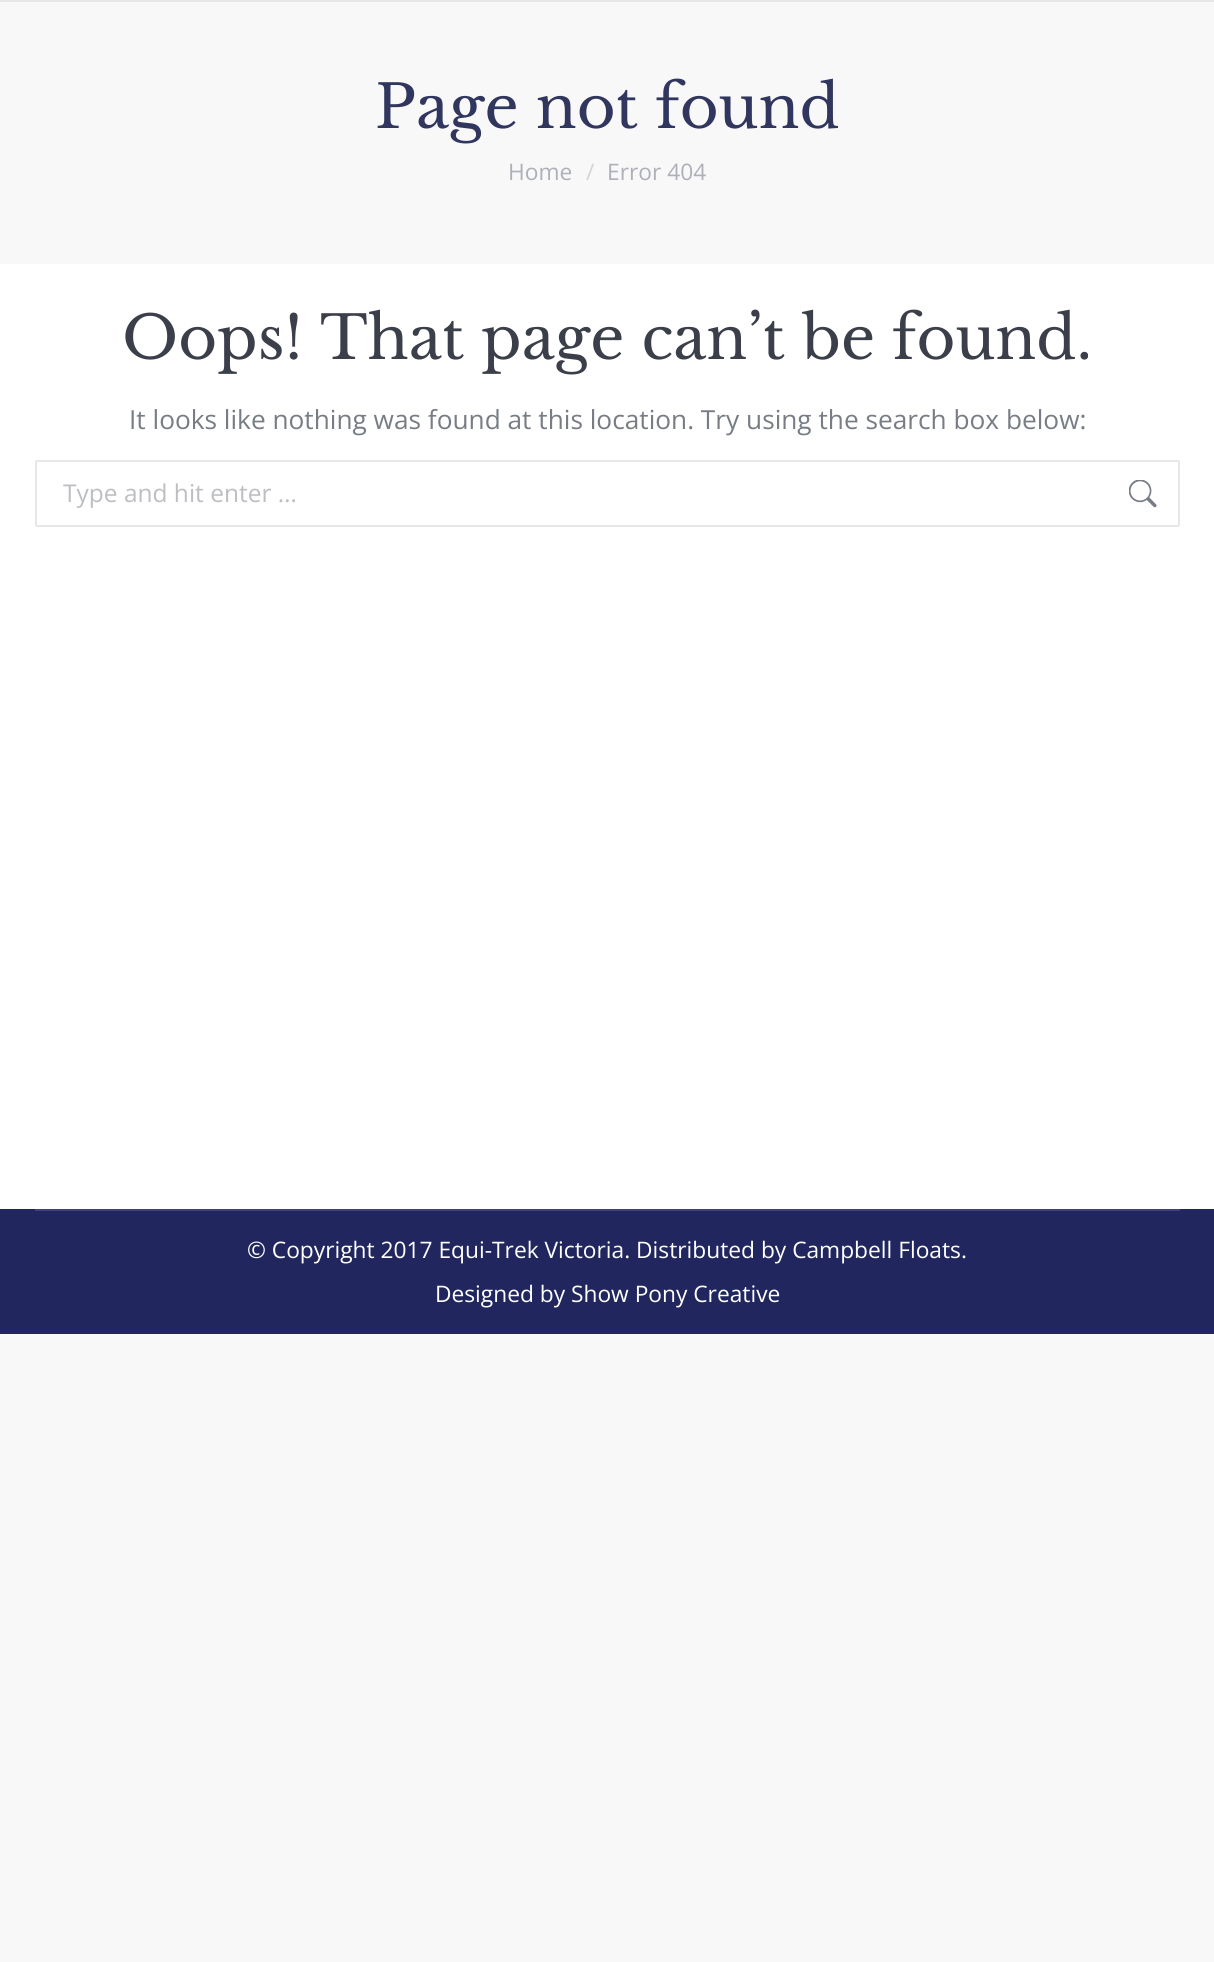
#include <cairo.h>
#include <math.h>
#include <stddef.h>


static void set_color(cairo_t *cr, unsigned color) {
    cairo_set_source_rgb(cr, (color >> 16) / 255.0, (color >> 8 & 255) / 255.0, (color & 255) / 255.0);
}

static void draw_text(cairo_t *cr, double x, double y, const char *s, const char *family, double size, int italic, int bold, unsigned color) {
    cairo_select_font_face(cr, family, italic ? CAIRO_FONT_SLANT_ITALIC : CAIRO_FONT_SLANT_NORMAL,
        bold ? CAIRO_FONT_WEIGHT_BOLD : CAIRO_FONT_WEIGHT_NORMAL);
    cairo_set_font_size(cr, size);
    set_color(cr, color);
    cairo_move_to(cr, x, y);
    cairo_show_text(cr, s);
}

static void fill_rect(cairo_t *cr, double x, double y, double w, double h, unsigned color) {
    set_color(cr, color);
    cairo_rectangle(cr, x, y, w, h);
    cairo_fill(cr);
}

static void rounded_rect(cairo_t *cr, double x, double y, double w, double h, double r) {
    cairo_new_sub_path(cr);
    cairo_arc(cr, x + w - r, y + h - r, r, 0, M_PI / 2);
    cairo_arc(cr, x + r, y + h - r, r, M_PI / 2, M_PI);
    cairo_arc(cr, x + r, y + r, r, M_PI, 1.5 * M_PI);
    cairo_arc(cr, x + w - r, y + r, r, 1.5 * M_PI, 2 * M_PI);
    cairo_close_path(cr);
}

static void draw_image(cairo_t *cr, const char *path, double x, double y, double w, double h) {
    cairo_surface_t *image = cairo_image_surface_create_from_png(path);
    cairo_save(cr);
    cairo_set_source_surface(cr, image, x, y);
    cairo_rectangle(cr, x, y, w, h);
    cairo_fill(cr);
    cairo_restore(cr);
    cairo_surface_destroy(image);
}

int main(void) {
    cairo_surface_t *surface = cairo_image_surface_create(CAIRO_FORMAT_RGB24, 1214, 1962);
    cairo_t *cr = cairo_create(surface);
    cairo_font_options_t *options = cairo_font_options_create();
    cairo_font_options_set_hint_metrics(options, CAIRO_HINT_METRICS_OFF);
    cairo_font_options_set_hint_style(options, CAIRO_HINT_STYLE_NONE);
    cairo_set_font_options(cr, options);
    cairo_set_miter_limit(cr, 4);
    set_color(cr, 0xF8F8F9);
    cairo_paint(cr);
    fill_rect(cr, 0, 264, 1214, 945, 0xFFFFFF);
    fill_rect(cr, 0, 0, 1214, 2, 0xE6E7E9);
    draw_text(cr, 375, 128, "Page not found", "Libre Baskerville", 59.5, 0, 0, 0x31365E);
    draw_text(cr, 508, 180, "Home", "Open Sans", 22.75, 0, 0, 0xADB0B6);
    draw_text(cr, 586, 180, "/", "Open Sans", 22.75, 0, 0, 0xD3D4D8);
    draw_text(cr, 607, 180, "Error 404", "Open Sans", 22.75, 0, 0, 0xADB0B6);
    draw_text(cr, 122, 359, "Oops! That page can’t be found.", "Libre Baskerville", 59.5, 0, 0, 0x3B3F4A);
    draw_text(cr, 129, 429, "It looks like nothing was found at this location. Try using the search box below:", "Open Sans", 26.25, 0, 0, 0x787D85);
    rounded_rect(cr, 36, 461, 1143, 65, 1);
    set_color(cr, 0xE6E7E9);
    cairo_stroke(cr);
    draw_text(cr, 63, 502, "Type and hit enter …", "Open Sans", 24.5, 0, 0, 0xBCBEC2);
    draw_image(cr, "assets/img1.png", 1129, 480, 28, 28);
    fill_rect(cr, 0, 1209, 1214, 125, 0x21275E);
    fill_rect(cr, 35, 1209, 1145, 2, 0x3E4373);
    draw_text(cr, 247, 1258, "© Copyright 2017 Equi-Trek Victoria. Distributed by Campbell Floats.", "Open Sans", 22.75, 0, 0, 0xFFFFFF);
    draw_text(cr, 435, 1302, "Designed by Show Pony Creative", "Open Sans", 22.75, 0, 0, 0xFFFFFF);
    cairo_surface_write_to_png(surface, "output.png");
    cairo_font_options_destroy(options);
    cairo_destroy(cr);
    cairo_surface_destroy(surface);
    return 0;
}
